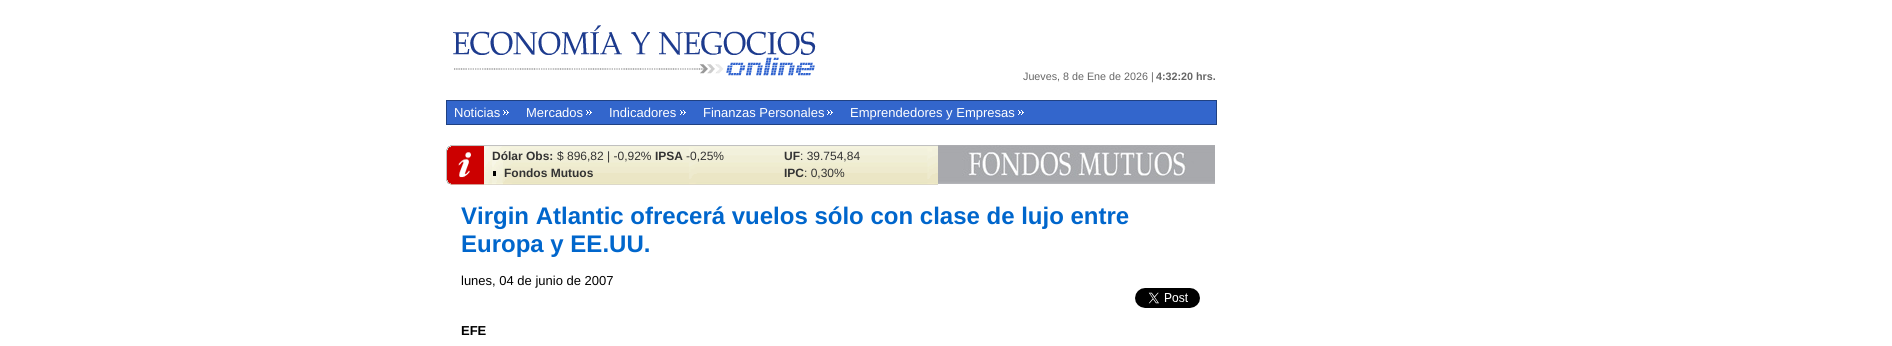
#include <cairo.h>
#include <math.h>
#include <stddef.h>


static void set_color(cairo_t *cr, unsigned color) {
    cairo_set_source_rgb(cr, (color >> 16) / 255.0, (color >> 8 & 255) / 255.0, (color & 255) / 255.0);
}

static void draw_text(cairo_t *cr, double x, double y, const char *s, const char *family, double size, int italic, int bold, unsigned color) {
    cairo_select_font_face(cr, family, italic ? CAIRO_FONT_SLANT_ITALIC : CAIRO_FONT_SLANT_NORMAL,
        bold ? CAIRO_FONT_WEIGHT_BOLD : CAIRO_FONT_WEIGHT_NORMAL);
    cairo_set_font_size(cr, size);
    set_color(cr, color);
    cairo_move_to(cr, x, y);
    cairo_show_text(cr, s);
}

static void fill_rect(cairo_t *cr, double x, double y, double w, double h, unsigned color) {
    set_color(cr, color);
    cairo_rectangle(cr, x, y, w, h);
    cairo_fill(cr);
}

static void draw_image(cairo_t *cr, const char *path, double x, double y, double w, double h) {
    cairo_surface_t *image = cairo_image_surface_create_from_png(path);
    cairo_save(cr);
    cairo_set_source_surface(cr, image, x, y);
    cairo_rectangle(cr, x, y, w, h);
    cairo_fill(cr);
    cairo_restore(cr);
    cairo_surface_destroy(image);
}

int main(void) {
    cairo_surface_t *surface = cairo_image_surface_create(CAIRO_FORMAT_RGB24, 1892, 346);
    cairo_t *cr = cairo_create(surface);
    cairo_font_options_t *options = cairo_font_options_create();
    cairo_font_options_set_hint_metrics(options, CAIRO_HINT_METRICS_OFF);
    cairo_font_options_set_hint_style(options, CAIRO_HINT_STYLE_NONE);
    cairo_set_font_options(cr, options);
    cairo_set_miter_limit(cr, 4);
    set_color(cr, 0xFFFFFF);
    cairo_paint(cr);
    draw_image(cr, "assets/img1.png", 453, 25, 363, 51);
    draw_text(cr, 1023, 80, "Jueves, 8 de Ene de 2026 |", "Liberation Sans", 10.75, 0, 0, 0x666666);
    draw_text(cr, 1156, 80, "4:32:20 hrs.", "Liberation Sans", 10.75, 0, 1, 0x666666);
    set_color(cr, 0x3366CC);
    cairo_rectangle(cr, 446.5, 100.5, 770, 24);
    cairo_fill_preserve(cr);
    set_color(cr, 0x204182);
    cairo_set_line_width(cr, 1);
    cairo_stroke(cr);
    draw_image(cr, "assets/img2.png", 503, 110, 6, 5);
    draw_text(cr, 454, 117, "Noticias", "Liberation Sans", 13, 0, 0, 0xFFFFFF);
    draw_image(cr, "assets/img2.png", 586, 110, 6, 5);
    draw_text(cr, 526, 117, "Mercados", "Liberation Sans", 13, 0, 0, 0xFFFFFF);
    draw_image(cr, "assets/img2.png", 680, 110, 6, 5);
    draw_text(cr, 609, 117, "Indicadores", "Liberation Sans", 13, 0, 0, 0xFFFFFF);
    draw_image(cr, "assets/img2.png", 827, 110, 6, 5);
    draw_text(cr, 703, 117, "Finanzas Personales", "Liberation Sans", 13, 0, 0, 0xFFFFFF);
    draw_image(cr, "assets/img2.png", 1018, 110, 6, 5);
    draw_text(cr, 850, 117, "Emprendedores y Empresas", "Liberation Sans", 13, 0, 0, 0xFFFFFF);
    draw_image(cr, "assets/img3.png", 446, 145, 338, 40);
    draw_text(cr, 492, 160, "Dólar Obs:", "Liberation Sans", 12, 0, 1, 0x333333);
    draw_text(cr, 557, 160, "$ 896,82 | -0,92%", "Liberation Sans", 12, 0, 0, 0x333333);
    draw_text(cr, 655, 160, "IPSA", "Liberation Sans", 12, 0, 1, 0x333333);
    draw_text(cr, 686, 160, "-0,25%", "Liberation Sans", 12, 0, 0, 0x333333);
    fill_rect(cr, 493, 171, 3, 5, 0x000000);
    draw_text(cr, 504, 177, "Fondos Mutuos", "Liberation Sans", 12, 0, 1, 0x333333);
    draw_image(cr, "assets/img4.png", 784, 145, 154, 40);
    draw_text(cr, 784, 160, "UF", "Liberation Sans", 12, 0, 1, 0x333333);
    draw_text(cr, 800, 160, ": 39.754,84", "Liberation Sans", 12, 0, 0, 0x333333);
    draw_text(cr, 784, 177, "IPC", "Liberation Sans", 12, 0, 1, 0x333333);
    draw_text(cr, 804, 177, ": 0,30%", "Liberation Sans", 12, 0, 0, 0x333333);
    draw_image(cr, "assets/img5.png", 938, 145, 277, 39);
    draw_text(cr, 461, 224, "Virgin Atlantic ofrecerá vuelos sólo con clase de lujo entre", "Liberation Sans", 24, 0, 1, 0x0066CC);
    draw_text(cr, 461, 252, "Europa y EE.UU.", "Liberation Sans", 24, 0, 1, 0x0066CC);
    draw_text(cr, 461, 285, "lunes, 04 de junio de 2007", "Liberation Sans", 13, 0, 0, 0x000000);
    draw_image(cr, "assets/img6.png", 1135, 288, 65, 20);
    draw_text(cr, 461, 335, "EFE", "Liberation Sans", 13, 0, 1, 0x000000);
    cairo_surface_write_to_png(surface, "output.png");
    cairo_font_options_destroy(options);
    cairo_destroy(cr);
    cairo_surface_destroy(surface);
    return 0;
}
